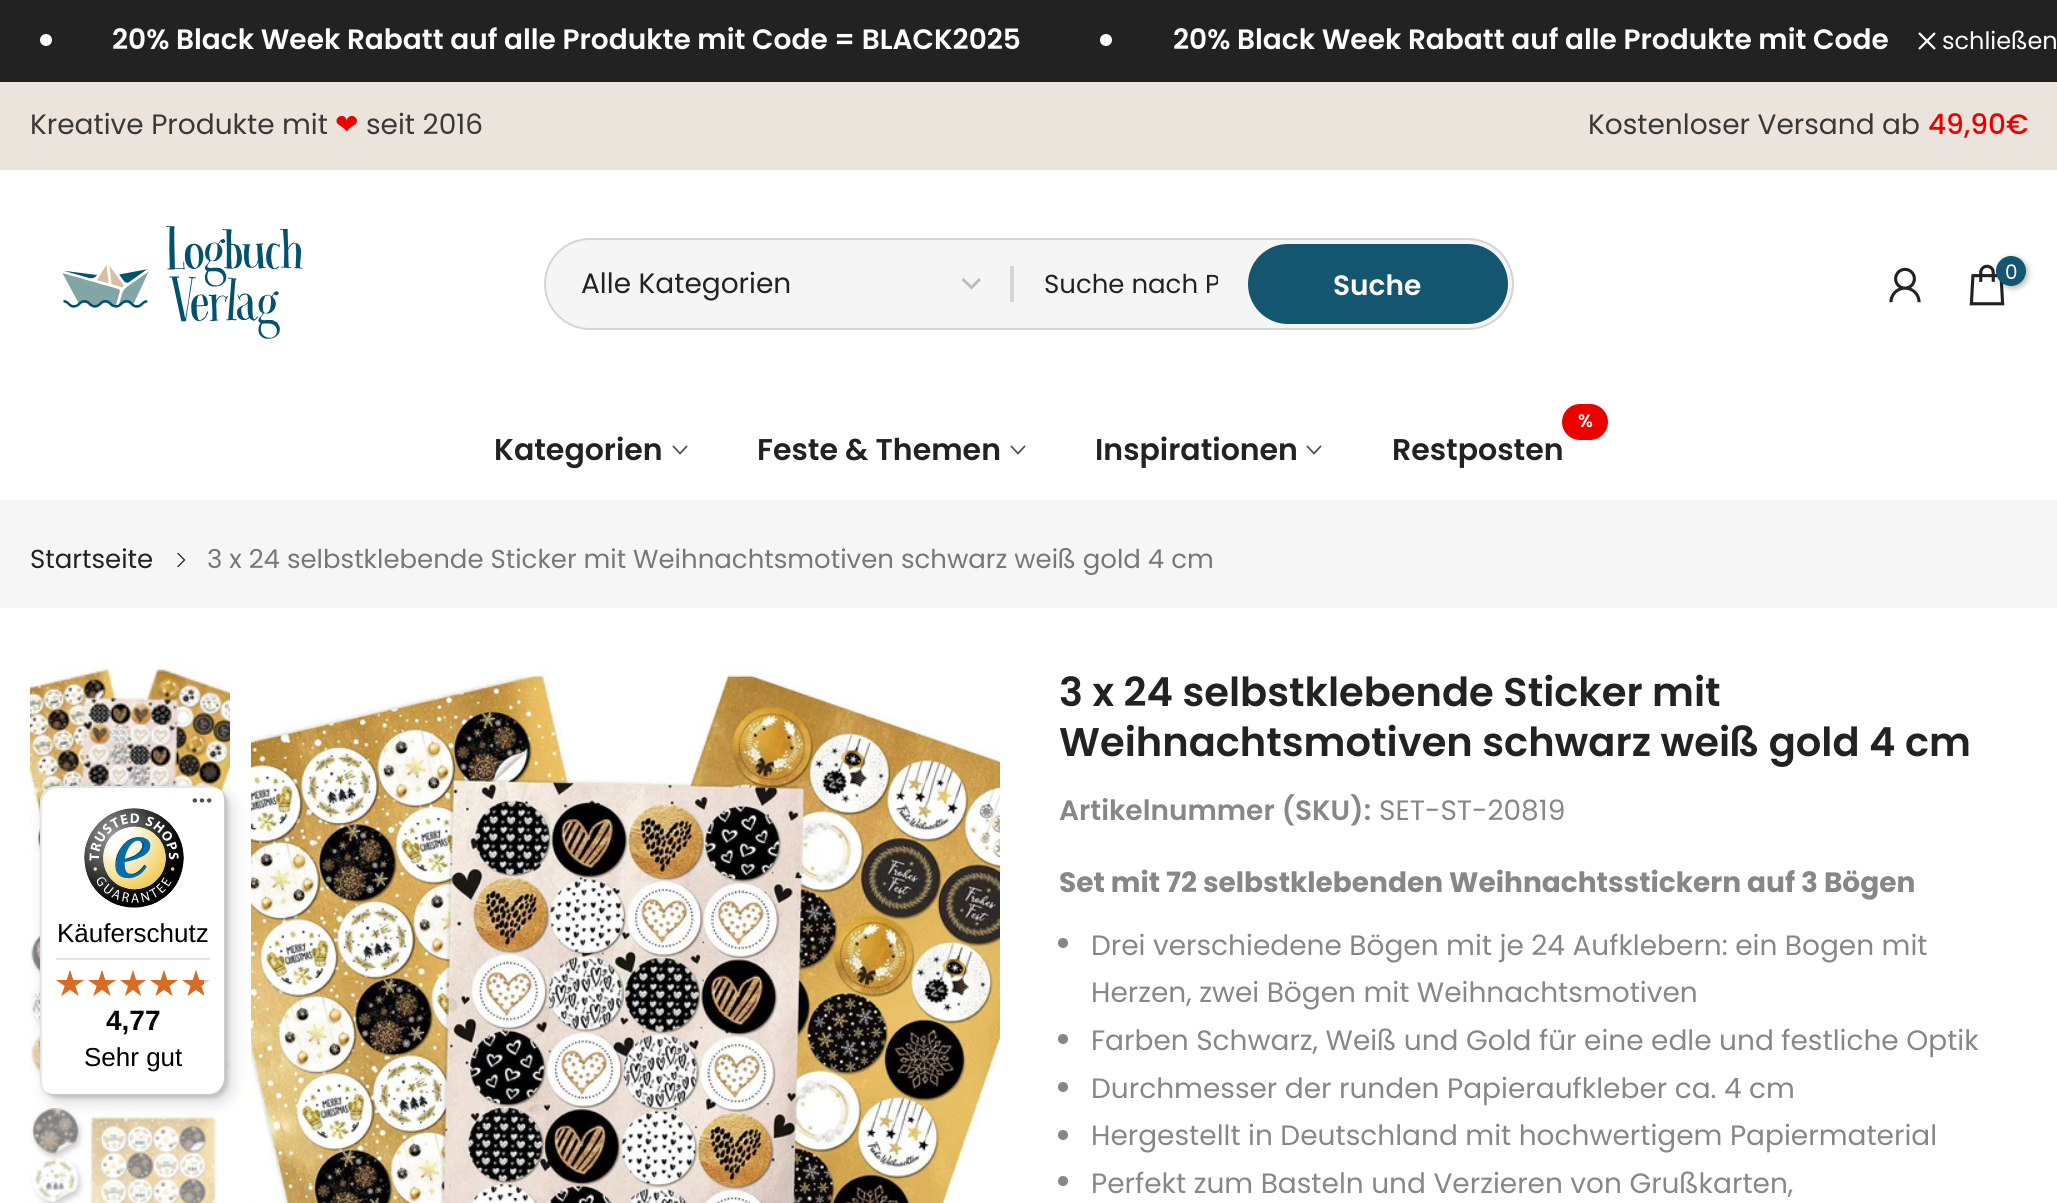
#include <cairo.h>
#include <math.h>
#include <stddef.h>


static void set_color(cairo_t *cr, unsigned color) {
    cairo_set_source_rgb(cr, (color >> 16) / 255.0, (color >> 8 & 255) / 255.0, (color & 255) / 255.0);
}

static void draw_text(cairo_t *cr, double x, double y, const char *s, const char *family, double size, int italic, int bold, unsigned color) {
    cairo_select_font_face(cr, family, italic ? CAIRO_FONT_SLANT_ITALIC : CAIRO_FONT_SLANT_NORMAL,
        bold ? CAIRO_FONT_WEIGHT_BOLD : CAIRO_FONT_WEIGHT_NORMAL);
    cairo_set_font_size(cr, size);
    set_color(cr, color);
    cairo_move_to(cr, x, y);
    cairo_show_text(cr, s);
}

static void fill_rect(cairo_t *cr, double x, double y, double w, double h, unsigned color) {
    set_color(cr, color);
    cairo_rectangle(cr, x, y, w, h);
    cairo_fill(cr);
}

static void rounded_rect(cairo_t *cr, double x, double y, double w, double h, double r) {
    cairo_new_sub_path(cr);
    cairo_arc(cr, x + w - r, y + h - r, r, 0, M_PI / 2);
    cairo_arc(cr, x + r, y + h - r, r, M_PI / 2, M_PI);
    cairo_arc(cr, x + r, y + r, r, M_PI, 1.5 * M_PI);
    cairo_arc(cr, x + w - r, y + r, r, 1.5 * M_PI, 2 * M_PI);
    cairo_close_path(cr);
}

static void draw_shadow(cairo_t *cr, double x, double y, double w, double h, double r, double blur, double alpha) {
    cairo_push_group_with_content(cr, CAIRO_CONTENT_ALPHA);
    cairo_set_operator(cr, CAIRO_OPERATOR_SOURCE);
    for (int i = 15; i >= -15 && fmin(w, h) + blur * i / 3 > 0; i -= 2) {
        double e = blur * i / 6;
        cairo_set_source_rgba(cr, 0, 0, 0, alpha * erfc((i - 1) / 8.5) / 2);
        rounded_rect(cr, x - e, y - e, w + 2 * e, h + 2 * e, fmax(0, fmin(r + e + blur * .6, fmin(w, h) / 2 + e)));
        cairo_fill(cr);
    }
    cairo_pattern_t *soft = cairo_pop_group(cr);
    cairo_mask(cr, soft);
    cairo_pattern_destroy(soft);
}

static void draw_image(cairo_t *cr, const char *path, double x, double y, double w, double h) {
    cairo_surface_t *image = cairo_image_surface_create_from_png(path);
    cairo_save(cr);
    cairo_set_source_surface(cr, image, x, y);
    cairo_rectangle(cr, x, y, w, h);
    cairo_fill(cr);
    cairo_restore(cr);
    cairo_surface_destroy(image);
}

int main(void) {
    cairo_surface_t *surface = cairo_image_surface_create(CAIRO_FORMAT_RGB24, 2057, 1203);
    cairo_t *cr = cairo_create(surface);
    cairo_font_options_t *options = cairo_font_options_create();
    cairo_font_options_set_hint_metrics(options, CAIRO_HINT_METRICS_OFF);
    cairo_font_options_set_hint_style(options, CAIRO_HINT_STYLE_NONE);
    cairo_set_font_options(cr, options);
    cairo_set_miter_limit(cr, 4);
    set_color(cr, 0xFFFFFF);
    cairo_paint(cr);
    fill_rect(cr, 0, 0, 2057, 82, 0x222222);
    set_color(cr, 0xFFFFFF);
    cairo_arc(cr, 46, 40, 6, 0, 2 * M_PI);
    cairo_fill(cr);
    draw_text(cr, 112, 49, "20% Black Week Rabatt auf alle Produkte mit Code = BLACK2025", "Poppins SemiBold", 28, 0, 0, 0xFFFFFF);
    cairo_new_path(cr);
    cairo_arc(cr, 1106, 40, 6, 0, 2 * M_PI);
    cairo_fill(cr);
    draw_text(cr, 1173, 49, "20% Black Week Rabatt auf alle Produkte mit Code", "Poppins SemiBold", 28, 0, 0, 0xFFFFFF);
    cairo_new_path(cr);
    cairo_move_to(cr, 1935, 33);
    cairo_line_to(cr, 1919, 49);
    cairo_move_to(cr, 1935, 49);
    cairo_line_to(cr, 1919, 33);
    cairo_set_line_width(cr, 2.2);
    cairo_stroke(cr);
    draw_text(cr, 1942, 49, "schließen", "Poppins", 24, 0, 0, 0xFFFFFF);
    fill_rect(cr, 0, 82, 2057, 88, 0xEBE4DC);
    draw_text(cr, 30, 134, "Kreative Produkte mit", "Poppins", 28, 0, 0, 0x383838);
    draw_text(cr, 335, 134, "❤", "DejaVu Sans", 28, 0, 0, 0xEC0101);
    draw_text(cr, 366, 134, "seit 2016", "Poppins", 28, 0, 0, 0x383838);
    draw_text(cr, 1588, 134, "Kostenloser Versand ab", "Poppins", 28, 0, 0, 0x383838);
    draw_text(cr, 1928, 134, "49,90€", "Poppins Medium", 28, 0, 0, 0xEC0101);
    draw_image(cr, "assets/img1.png", 62, 226, 241, 113);
    set_color(cr, 0xF5F5F5);
    rounded_rect(cr, 544, 238, 970, 92, 46);
    cairo_fill(cr);
    rounded_rect(cr, 545, 239, 968, 90, 45);
    cairo_set_source_rgba(cr, 0.133, 0.133, 0.133, 0.15);
    cairo_set_line_width(cr, 2);
    cairo_stroke(cr);
    cairo_new_path(cr);
    cairo_move_to(cr, 962.5, 279);
    cairo_line_to(cr, 971.5, 287.5);
    cairo_line_to(cr, 980, 279);
    set_color(cr, 0xBBBBBB);
    cairo_set_line_width(cr, 2.9);
    cairo_stroke(cr);
    draw_text(cr, 581, 293, "Alle Kategorien", "Poppins", 28, 0, 0, 0x222222);
    fill_rect(cr, 1010, 266, 4, 36, 0xD5D5D5);
    cairo_save(cr);
    cairo_rectangle(cr, 1044, 264, 174, 40);
    cairo_clip(cr);
    draw_text(cr, 1044, 293, "Suche nach P", "Poppins", 26, 0, 0, 0x222222);
    cairo_restore(cr);
    set_color(cr, 0x145670);
    rounded_rect(cr, 1248, 244, 260, 80, 40);
    cairo_fill(cr);
    draw_text(cr, 1333, 295, "Suche", "Poppins SemiBold", 28, 0, 0, 0xFFFFFF);
    draw_image(cr, "assets/img2.png", 1889, 267, 32, 36);
    draw_image(cr, "assets/img3.png", 1969, 264, 36, 42);
    set_color(cr, 0x000000);
    draw_shadow(cr, 1998, 258, 30, 30, 15, 3, 0.3);
    set_color(cr, 0x145670);
    cairo_arc(cr, 2011, 271, 15, 0, 2 * M_PI);
    cairo_fill(cr);
    draw_text(cr, 2005, 279, "0", "Poppins", 20, 0, 0, 0xFFFFFF);
    draw_text(cr, 494, 460, "Kategorien", "Poppins SemiBold", 30, 0, 0, 0x222222);
    cairo_new_path(cr);
    cairo_move_to(cr, 686.5, 446.5);
    cairo_line_to(cr, 680, 453.5);
    cairo_line_to(cr, 673.5, 446.5);
    set_color(cr, 0x4E4E4E);
    cairo_set_line_width(cr, 1.7);
    cairo_set_line_cap(cr, CAIRO_LINE_CAP_SQUARE);
    cairo_stroke(cr);
    draw_text(cr, 757, 460, "Feste & Themen", "Poppins SemiBold", 30, 0, 0, 0x222222);
    cairo_new_path(cr);
    cairo_move_to(cr, 1024.5, 446.5);
    cairo_line_to(cr, 1018, 453.5);
    cairo_line_to(cr, 1011.5, 446.5);
    set_color(cr, 0x4E4E4E);
    cairo_stroke(cr);
    draw_text(cr, 1095, 460, "Inspirationen", "Poppins SemiBold", 30, 0, 0, 0x222222);
    cairo_new_path(cr);
    cairo_move_to(cr, 1320.5, 446.5);
    cairo_line_to(cr, 1314, 453.5);
    cairo_line_to(cr, 1307.5, 446.5);
    set_color(cr, 0x4E4E4E);
    cairo_stroke(cr);
    set_color(cr, 0xEC0101);
    rounded_rect(cr, 1562, 404, 46, 36, 18);
    cairo_fill(cr);
    draw_text(cr, 1578, 427, "%", "Poppins SemiBold", 18, 0, 0, 0xFFFFFF);
    draw_text(cr, 1392, 460, "Restposten", "Poppins SemiBold", 30, 0, 0, 0x222222);
    fill_rect(cr, 0, 500, 2057, 108, 0xF6F6F6);
    draw_text(cr, 30, 568, "Startseite", "Poppins", 26, 0, 0, 0x222222);
    draw_image(cr, "assets/img4.png", 177, 552, 9, 16);
    draw_text(cr, 207, 568, "3 x 24 selbstklebende Sticker mit Weihnachtsmotiven schwarz weiß gold 4 cm", "Poppins", 26, 0, 0, 0x777777);
    draw_image(cr, "assets/img5.png", 30, 668, 200, 200);
    draw_image(cr, "assets/img6.png", 30, 892, 200, 190);
    draw_image(cr, "assets/img7.png", 30, 1108, 188, 95);
    draw_image(cr, "assets/img8.png", 250, 668, 750, 535);
    draw_image(cr, "assets/img9.png", 250, 672, 1, 531);
    draw_text(cr, 1059, 706, "3 x 24 selbstklebende Sticker mit", "Poppins SemiBold", 40, 0, 0, 0x222222);
    draw_text(cr, 1059, 756, "Weihnachtsmotiven schwarz weiß gold 4 cm", "Poppins SemiBold", 40, 0, 0, 0x222222);
    draw_text(cr, 1059, 820, "Artikelnummer (SKU):", "Poppins SemiBold", 28, 0, 0, 0x878787);
    draw_text(cr, 1379, 820, "SET-ST-20819", "Poppins", 28, 0, 0, 0x878787);
    draw_text(cr, 1059, 892, "Set mit 72 selbstklebenden Weihnachtsstickern auf 3 Bögen", "Poppins", 28, 0, 1, 0x878787);
    cairo_new_path(cr);
    cairo_arc(cr, 1063, 943, 5, 0, 2 * M_PI);
    cairo_fill(cr);
    draw_text(cr, 1091, 955, "Drei verschiedene Bögen mit je 24 Aufklebern: ein Bogen mit", "Poppins", 28, 0, 0, 0x878787);
    draw_text(cr, 1091, 1002, "Herzen, zwei Bögen mit Weihnachtsmotiven", "Poppins", 28, 0, 0, 0x878787);
    cairo_new_path(cr);
    cairo_arc(cr, 1063, 1039, 5, 0, 2 * M_PI);
    cairo_fill(cr);
    draw_text(cr, 1091, 1050, "Farben Schwarz, Weiß und Gold für eine edle und festliche Optik", "Poppins", 28, 0, 0, 0x878787);
    cairo_new_path(cr);
    cairo_arc(cr, 1063, 1087, 5, 0, 2 * M_PI);
    cairo_fill(cr);
    draw_text(cr, 1091, 1098, "Durchmesser der runden Papieraufkleber ca. 4 cm", "Poppins", 28, 0, 0, 0x878787);
    cairo_new_path(cr);
    cairo_arc(cr, 1063, 1135, 5, 0, 2 * M_PI);
    cairo_fill(cr);
    draw_text(cr, 1091, 1145, "Hergestellt in Deutschland mit hochwertigem Papiermaterial", "Poppins", 28, 0, 0, 0x878787);
    cairo_new_path(cr);
    cairo_arc(cr, 1063, 1181, 5, 0, 2 * M_PI);
    cairo_fill(cr);
    draw_text(cr, 1091, 1193, "Perfekt zum Basteln und Verzieren von Grußkarten,", "Poppins", 28, 0, 0, 0x878787);
    set_color(cr, 0x000000);
    draw_shadow(cr, 46, 792, 186, 310, 16, 8, 0.15);
    draw_shadow(cr, 42, 788, 186, 310, 16, 2, 0.15);
    set_color(cr, 0xFFFFFF);
    rounded_rect(cr, 40, 786, 186, 310, 16);
    cairo_fill(cr);
    cairo_set_source_rgba(cr, 0, 0, 0, 0.1);
    cairo_new_path(cr);
    cairo_move_to(cr, 58, 788);
    cairo_line_to(cr, 212, 788);
    cairo_curve_to(cr, 216, 788, 219, 789, 222, 791);
    cairo_curve_to(cr, 219, 788, 215, 786, 210, 786);
    cairo_line_to(cr, 56, 786);
    cairo_curve_to(cr, 47, 786, 40, 793, 40, 802);
    cairo_line_to(cr, 40, 1080);
    cairo_curve_to(cr, 40, 1085, 42, 1089, 45, 1092);
    cairo_curve_to(cr, 43, 1089, 42, 1086, 42, 1082);
    cairo_line_to(cr, 42, 804);
    cairo_curve_to(cr, 42, 795, 49, 788, 58, 788);
    cairo_close_path(cr);
    cairo_fill(cr);
    cairo_set_source_rgba(cr, 0, 0, 0, 0.2);
    cairo_new_path(cr);
    cairo_move_to(cr, 44, 1091);
    cairo_curve_to(cr, 47, 1094, 51, 1096, 56, 1096);
    cairo_line_to(cr, 210, 1096);
    cairo_curve_to(cr, 219, 1096, 226, 1089, 226, 1080);
    cairo_line_to(cr, 226, 802);
    cairo_curve_to(cr, 226, 797, 224, 793, 221, 790);
    cairo_curve_to(cr, 223, 793, 224, 796, 224, 800);
    cairo_line_to(cr, 224, 1078);
    cairo_curve_to(cr, 224, 1087, 217, 1094, 208, 1094);
    cairo_line_to(cr, 54, 1094);
    cairo_curve_to(cr, 50, 1094, 47, 1093, 44, 1091);
    cairo_close_path(cr);
    cairo_fill(cr);
    cairo_set_source_rgba(cr, 0.196, 0.196, 0.196, 0.2);
    cairo_new_path(cr);
    cairo_move_to(cr, 45, 1091);
    cairo_curve_to(cr, 48, 1094, 52, 1096, 56, 1096);
    cairo_line_to(cr, 210, 1096);
    cairo_curve_to(cr, 219, 1096, 226, 1089, 226, 1080);
    cairo_line_to(cr, 226, 802);
    cairo_curve_to(cr, 226, 798, 224, 794, 221, 791);
    cairo_curve_to(cr, 224, 794, 225, 797, 225, 801);
    cairo_line_to(cr, 225, 1079);
    cairo_curve_to(cr, 225, 1088, 218, 1095, 209, 1095);
    cairo_line_to(cr, 55, 1095);
    cairo_curve_to(cr, 51, 1095, 48, 1094, 45, 1091);
    cairo_close_path(cr);
    cairo_fill(cr);
    cairo_set_source_rgba(cr, 1, 1, 1, 0.3);
    cairo_new_path(cr);
    cairo_move_to(cr, 45, 1091);
    cairo_curve_to(cr, 48, 1094, 52, 1096, 56, 1096);
    cairo_line_to(cr, 210, 1096);
    cairo_curve_to(cr, 219, 1096, 226, 1089, 226, 1080);
    cairo_line_to(cr, 226, 802);
    cairo_curve_to(cr, 226, 798, 224, 794, 221, 791);
    cairo_curve_to(cr, 224, 794, 225, 797, 225, 801);
    cairo_line_to(cr, 225, 1079);
    cairo_curve_to(cr, 225, 1088, 218, 1095, 209, 1095);
    cairo_line_to(cr, 55, 1095);
    cairo_curve_to(cr, 51, 1095, 48, 1094, 45, 1091);
    cairo_close_path(cr);
    cairo_fill(cr);
    draw_image(cr, "assets/img10.png", 192, 798, 20, 5);
    draw_image(cr, "assets/img11.png", 84, 808, 100, 100);
    draw_text(cr, 57, 942, "Käuferschutz", "Liberation Sans", 26, 0, 0, 0x000000);
    fill_rect(cr, 56, 958, 154, 2, 0xE5E5E5);
    draw_image(cr, "assets/img12.png", 56, 970, 28, 26);
    draw_image(cr, "assets/img12.png", 88, 970, 28, 26);
    draw_image(cr, "assets/img13.png", 120, 970, 26, 26);
    draw_image(cr, "assets/img12.png", 150, 970, 28, 26);
    draw_image(cr, "assets/img12.png", 182, 970, 28, 26);
    draw_image(cr, "assets/img14.png", 56, 970, 28, 26);
    draw_image(cr, "assets/img14.png", 88, 970, 28, 26);
    draw_image(cr, "assets/img15.png", 120, 970, 26, 26);
    draw_image(cr, "assets/img14.png", 150, 970, 28, 26);
    draw_image(cr, "assets/img16.png", 182, 970, 22, 26);
    draw_text(cr, 106, 1030, "4,77", "Liberation Sans", 28, 0, 1, 0x000000);
    draw_text(cr, 84, 1066, "Sehr gut", "Liberation Sans", 26, 0, 0, 0x000000);
    cairo_surface_write_to_png(surface, "output.png");
    cairo_font_options_destroy(options);
    cairo_destroy(cr);
    cairo_surface_destroy(surface);
    return 0;
}
